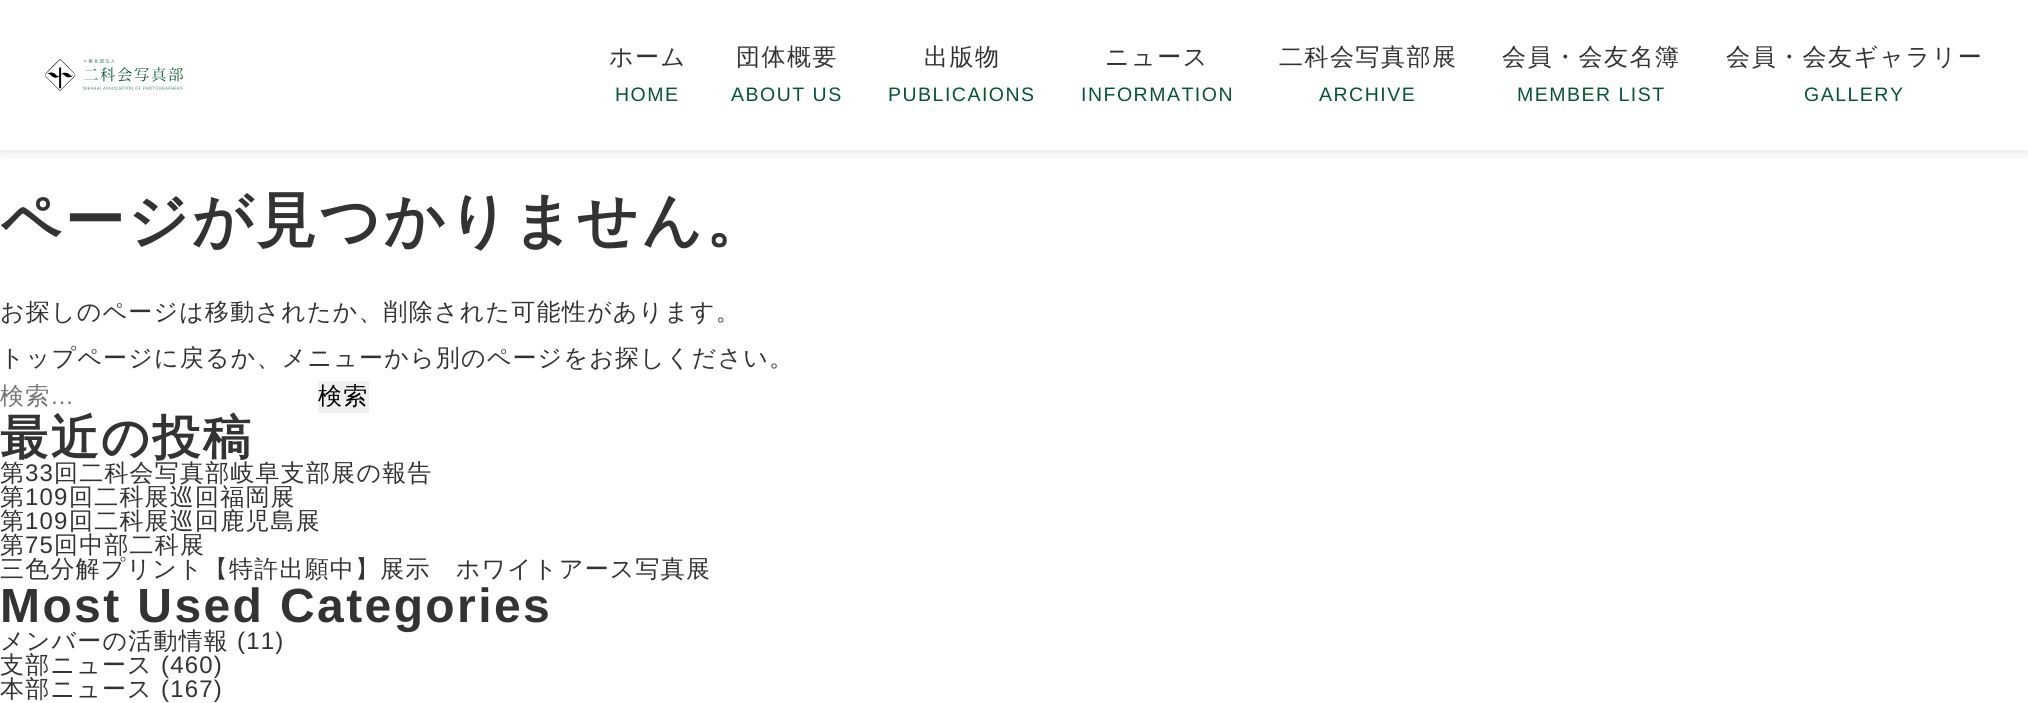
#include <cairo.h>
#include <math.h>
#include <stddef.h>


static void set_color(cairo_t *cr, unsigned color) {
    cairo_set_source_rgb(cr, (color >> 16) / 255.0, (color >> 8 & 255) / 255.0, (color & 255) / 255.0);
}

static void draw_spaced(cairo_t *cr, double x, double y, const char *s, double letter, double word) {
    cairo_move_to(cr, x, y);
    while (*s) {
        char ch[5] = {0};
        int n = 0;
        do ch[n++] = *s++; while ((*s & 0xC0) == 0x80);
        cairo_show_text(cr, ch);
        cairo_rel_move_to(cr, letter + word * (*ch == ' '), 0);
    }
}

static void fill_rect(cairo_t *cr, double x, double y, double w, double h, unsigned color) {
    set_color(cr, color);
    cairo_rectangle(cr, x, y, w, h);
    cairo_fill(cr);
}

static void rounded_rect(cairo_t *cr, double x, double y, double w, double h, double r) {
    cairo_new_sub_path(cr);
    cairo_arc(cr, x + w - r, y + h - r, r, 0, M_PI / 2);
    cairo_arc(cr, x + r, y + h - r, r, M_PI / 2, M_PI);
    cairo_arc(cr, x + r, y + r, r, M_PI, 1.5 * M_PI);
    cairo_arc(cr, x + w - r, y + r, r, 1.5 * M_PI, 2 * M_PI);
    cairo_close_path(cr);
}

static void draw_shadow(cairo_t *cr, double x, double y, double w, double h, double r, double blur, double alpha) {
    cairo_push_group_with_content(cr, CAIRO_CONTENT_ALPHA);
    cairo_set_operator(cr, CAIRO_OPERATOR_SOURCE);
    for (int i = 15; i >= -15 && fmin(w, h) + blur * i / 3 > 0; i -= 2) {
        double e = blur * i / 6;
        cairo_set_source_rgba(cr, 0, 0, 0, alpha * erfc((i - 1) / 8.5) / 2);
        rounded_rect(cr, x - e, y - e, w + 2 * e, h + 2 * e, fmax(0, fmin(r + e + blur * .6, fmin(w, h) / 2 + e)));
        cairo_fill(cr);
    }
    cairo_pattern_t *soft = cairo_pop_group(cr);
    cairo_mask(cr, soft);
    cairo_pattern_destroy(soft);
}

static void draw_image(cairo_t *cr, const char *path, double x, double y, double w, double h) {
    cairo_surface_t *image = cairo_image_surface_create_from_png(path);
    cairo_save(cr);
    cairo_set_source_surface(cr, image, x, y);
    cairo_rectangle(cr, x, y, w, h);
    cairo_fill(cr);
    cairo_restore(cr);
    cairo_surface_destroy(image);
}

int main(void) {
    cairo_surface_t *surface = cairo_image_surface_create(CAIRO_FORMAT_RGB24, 2028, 703);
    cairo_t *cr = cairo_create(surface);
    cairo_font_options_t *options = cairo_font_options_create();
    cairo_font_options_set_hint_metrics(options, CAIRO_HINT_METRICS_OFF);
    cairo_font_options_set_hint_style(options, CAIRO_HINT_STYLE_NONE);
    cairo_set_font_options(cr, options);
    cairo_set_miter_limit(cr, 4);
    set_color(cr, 0xFFFFFF);
    cairo_paint(cr);
    cairo_save(cr);
    cairo_rectangle(cr, 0, 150, 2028, 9);
    cairo_clip(cr);
    set_color(cr, 0x000000);
    draw_shadow(cr, 0, 3, 2028, 150, 0, 7.5, 0.1);
    cairo_restore(cr);
    draw_image(cr, "assets/img1.png", 45, 59, 138, 32);
    cairo_select_font_face(cr, "WenQuanYi Zen Hei Medium", CAIRO_FONT_SLANT_NORMAL, CAIRO_FONT_WEIGHT_NORMAL);
    cairo_set_font_size(cr, 24);
    set_color(cr, 0x333333);
    draw_spaced(cr, 609, 65, "ホーム", 1.5, 0);
    cairo_select_font_face(cr, "Liberation Sans", CAIRO_FONT_SLANT_NORMAL, CAIRO_FONT_WEIGHT_NORMAL);
    cairo_set_font_size(cr, 19.5);
    set_color(cr, 0x055630);
    draw_spaced(cr, 615, 101, "HOME", 1.5, 0);
    cairo_select_font_face(cr, "WenQuanYi Zen Hei Medium", CAIRO_FONT_SLANT_NORMAL, CAIRO_FONT_WEIGHT_NORMAL);
    cairo_set_font_size(cr, 24);
    set_color(cr, 0x333333);
    draw_spaced(cr, 736, 65, "団体概要", 1.5, 0);
    cairo_select_font_face(cr, "Liberation Sans", CAIRO_FONT_SLANT_NORMAL, CAIRO_FONT_WEIGHT_NORMAL);
    cairo_set_font_size(cr, 19.5);
    set_color(cr, 0x055630);
    draw_spaced(cr, 731, 101, "ABOUT US", 1.5, 0);
    cairo_select_font_face(cr, "WenQuanYi Zen Hei Medium", CAIRO_FONT_SLANT_NORMAL, CAIRO_FONT_WEIGHT_NORMAL);
    cairo_set_font_size(cr, 24);
    set_color(cr, 0x333333);
    draw_spaced(cr, 924, 65, "出版物", 1.5, 0);
    cairo_select_font_face(cr, "Liberation Sans", CAIRO_FONT_SLANT_NORMAL, CAIRO_FONT_WEIGHT_NORMAL);
    cairo_set_font_size(cr, 19.5);
    set_color(cr, 0x055630);
    draw_spaced(cr, 888, 101, "PUBLICAIONS", 1.5, 0);
    cairo_select_font_face(cr, "WenQuanYi Zen Hei Medium", CAIRO_FONT_SLANT_NORMAL, CAIRO_FONT_WEIGHT_NORMAL);
    cairo_set_font_size(cr, 24);
    set_color(cr, 0x333333);
    draw_spaced(cr, 1105, 65, "ニュース", 1.5, 0);
    cairo_select_font_face(cr, "Liberation Sans", CAIRO_FONT_SLANT_NORMAL, CAIRO_FONT_WEIGHT_NORMAL);
    cairo_set_font_size(cr, 19.5);
    set_color(cr, 0x055630);
    draw_spaced(cr, 1081, 101, "INFORMATION", 1.5, 0);
    cairo_select_font_face(cr, "WenQuanYi Zen Hei Medium", CAIRO_FONT_SLANT_NORMAL, CAIRO_FONT_WEIGHT_NORMAL);
    cairo_set_font_size(cr, 24);
    set_color(cr, 0x333333);
    draw_spaced(cr, 1279, 65, "二科会写真部展", 1.5, 0);
    cairo_select_font_face(cr, "Liberation Sans", CAIRO_FONT_SLANT_NORMAL, CAIRO_FONT_WEIGHT_NORMAL);
    cairo_set_font_size(cr, 19.5);
    set_color(cr, 0x055630);
    draw_spaced(cr, 1319, 101, "ARCHIVE", 1.5, 0);
    cairo_select_font_face(cr, "WenQuanYi Zen Hei Medium", CAIRO_FONT_SLANT_NORMAL, CAIRO_FONT_WEIGHT_NORMAL);
    cairo_set_font_size(cr, 24);
    set_color(cr, 0x333333);
    draw_spaced(cr, 1502, 65, "会員・会友名簿", 1.5, 0);
    cairo_select_font_face(cr, "Liberation Sans", CAIRO_FONT_SLANT_NORMAL, CAIRO_FONT_WEIGHT_NORMAL);
    cairo_set_font_size(cr, 19.5);
    set_color(cr, 0x055630);
    draw_spaced(cr, 1517, 101, "MEMBER LIST", 1.5, 0);
    cairo_select_font_face(cr, "WenQuanYi Zen Hei Medium", CAIRO_FONT_SLANT_NORMAL, CAIRO_FONT_WEIGHT_NORMAL);
    cairo_set_font_size(cr, 24);
    set_color(cr, 0x333333);
    draw_spaced(cr, 1726, 65, "会員・会友ギャラリー", 1.5, 0);
    cairo_select_font_face(cr, "Liberation Sans", CAIRO_FONT_SLANT_NORMAL, CAIRO_FONT_WEIGHT_NORMAL);
    cairo_set_font_size(cr, 19.5);
    set_color(cr, 0x055630);
    draw_spaced(cr, 1804, 101, "GALLERY", 1.5, 0);
    cairo_select_font_face(cr, "WenQuanYi Zen Hei", CAIRO_FONT_SLANT_NORMAL, CAIRO_FONT_WEIGHT_BOLD);
    cairo_set_font_size(cr, 60);
    set_color(cr, 0x333333);
    draw_spaced(cr, 0, 241, "ページが見つかりません。", 3, 0);
    cairo_select_font_face(cr, "WenQuanYi Zen Hei Medium", CAIRO_FONT_SLANT_NORMAL, CAIRO_FONT_WEIGHT_NORMAL);
    cairo_set_font_size(cr, 24);
    draw_spaced(cr, 0, 320, "お探しのページは移動されたか、削除された可能性があります。", 1.2, 0);
    draw_spaced(cr, 0, 366, "トップページに戻るか、メニューから別のページをお探しください。", 1.2, 0);
    set_color(cr, 0x757575);
    draw_spaced(cr, 0, 404, "検索", 1.2, 0);
    cairo_select_font_face(cr, "Liberation Sans", CAIRO_FONT_SLANT_NORMAL, CAIRO_FONT_WEIGHT_NORMAL);
    draw_spaced(cr, 50, 404, "…", 1.2, 0);
    fill_rect(cr, 318, 381, 51, 32, 0xEFEFEF);
    cairo_select_font_face(cr, "WenQuanYi Zen Hei Medium", CAIRO_FONT_SLANT_NORMAL, CAIRO_FONT_WEIGHT_NORMAL);
    set_color(cr, 0x000000);
    draw_spaced(cr, 318, 404, "検索", 1.2, 0);
    cairo_select_font_face(cr, "WenQuanYi Zen Hei", CAIRO_FONT_SLANT_NORMAL, CAIRO_FONT_WEIGHT_BOLD);
    cairo_set_font_size(cr, 48);
    set_color(cr, 0x333333);
    draw_spaced(cr, 0, 454, "最近の投稿", 2.4, 0);
    cairo_select_font_face(cr, "WenQuanYi Zen Hei Medium", CAIRO_FONT_SLANT_NORMAL, CAIRO_FONT_WEIGHT_NORMAL);
    cairo_set_font_size(cr, 24);
    draw_spaced(cr, 0, 481, "第", 1.2, 0);
    cairo_select_font_face(cr, "Liberation Sans", CAIRO_FONT_SLANT_NORMAL, CAIRO_FONT_WEIGHT_NORMAL);
    draw_spaced(cr, 25, 481, "33", 1.2, 0);
    cairo_select_font_face(cr, "WenQuanYi Zen Hei Medium", CAIRO_FONT_SLANT_NORMAL, CAIRO_FONT_WEIGHT_NORMAL);
    draw_spaced(cr, 54, 481, "回二科会写真部岐阜支部展の報告", 1.2, 0);
    draw_spaced(cr, 0, 505, "第", 1.2, 0);
    cairo_select_font_face(cr, "Liberation Sans", CAIRO_FONT_SLANT_NORMAL, CAIRO_FONT_WEIGHT_NORMAL);
    draw_spaced(cr, 25, 505, "109", 1.2, 0);
    cairo_select_font_face(cr, "WenQuanYi Zen Hei Medium", CAIRO_FONT_SLANT_NORMAL, CAIRO_FONT_WEIGHT_NORMAL);
    draw_spaced(cr, 69, 505, "回二科展巡回福岡展", 1.2, 0);
    draw_spaced(cr, 0, 529, "第", 1.2, 0);
    cairo_select_font_face(cr, "Liberation Sans", CAIRO_FONT_SLANT_NORMAL, CAIRO_FONT_WEIGHT_NORMAL);
    draw_spaced(cr, 25, 529, "109", 1.2, 0);
    cairo_select_font_face(cr, "WenQuanYi Zen Hei Medium", CAIRO_FONT_SLANT_NORMAL, CAIRO_FONT_WEIGHT_NORMAL);
    draw_spaced(cr, 69, 529, "回二科展巡回鹿児島展", 1.2, 0);
    draw_spaced(cr, 0, 553, "第", 1.2, 0);
    cairo_select_font_face(cr, "Liberation Sans", CAIRO_FONT_SLANT_NORMAL, CAIRO_FONT_WEIGHT_NORMAL);
    draw_spaced(cr, 25, 553, "75", 1.2, 0);
    cairo_select_font_face(cr, "WenQuanYi Zen Hei Medium", CAIRO_FONT_SLANT_NORMAL, CAIRO_FONT_WEIGHT_NORMAL);
    draw_spaced(cr, 54, 553, "回中部二科展", 1.2, 0);
    draw_spaced(cr, 0, 577, "三色分解プリント【特許出願中】展示　ホワイトアース写真展", 1.2, 0);
    cairo_select_font_face(cr, "Liberation Sans", CAIRO_FONT_SLANT_NORMAL, CAIRO_FONT_WEIGHT_BOLD);
    cairo_set_font_size(cr, 48);
    draw_spaced(cr, 0, 622, "Most Used Categories", 2.4, 0);
    cairo_select_font_face(cr, "WenQuanYi Zen Hei Medium", CAIRO_FONT_SLANT_NORMAL, CAIRO_FONT_WEIGHT_NORMAL);
    cairo_set_font_size(cr, 24);
    draw_spaced(cr, 0, 649, "メンバーの活動情報", 1.2, 0);
    cairo_select_font_face(cr, "Liberation Sans", CAIRO_FONT_SLANT_NORMAL, CAIRO_FONT_WEIGHT_NORMAL);
    draw_spaced(cr, 237, 649, "(11)", 1.2, 0);
    cairo_select_font_face(cr, "WenQuanYi Zen Hei Medium", CAIRO_FONT_SLANT_NORMAL, CAIRO_FONT_WEIGHT_NORMAL);
    draw_spaced(cr, 0, 673, "支部ニュース", 1.2, 0);
    cairo_select_font_face(cr, "Liberation Sans", CAIRO_FONT_SLANT_NORMAL, CAIRO_FONT_WEIGHT_NORMAL);
    draw_spaced(cr, 161, 673, "(460)", 1.2, 0);
    cairo_select_font_face(cr, "WenQuanYi Zen Hei Medium", CAIRO_FONT_SLANT_NORMAL, CAIRO_FONT_WEIGHT_NORMAL);
    draw_spaced(cr, 0, 697, "本部ニュース", 1.2, 0);
    cairo_select_font_face(cr, "Liberation Sans", CAIRO_FONT_SLANT_NORMAL, CAIRO_FONT_WEIGHT_NORMAL);
    draw_spaced(cr, 161, 697, "(167)", 1.2, 0);
    cairo_surface_write_to_png(surface, "output.png");
    cairo_font_options_destroy(options);
    cairo_destroy(cr);
    cairo_surface_destroy(surface);
    return 0;
}
